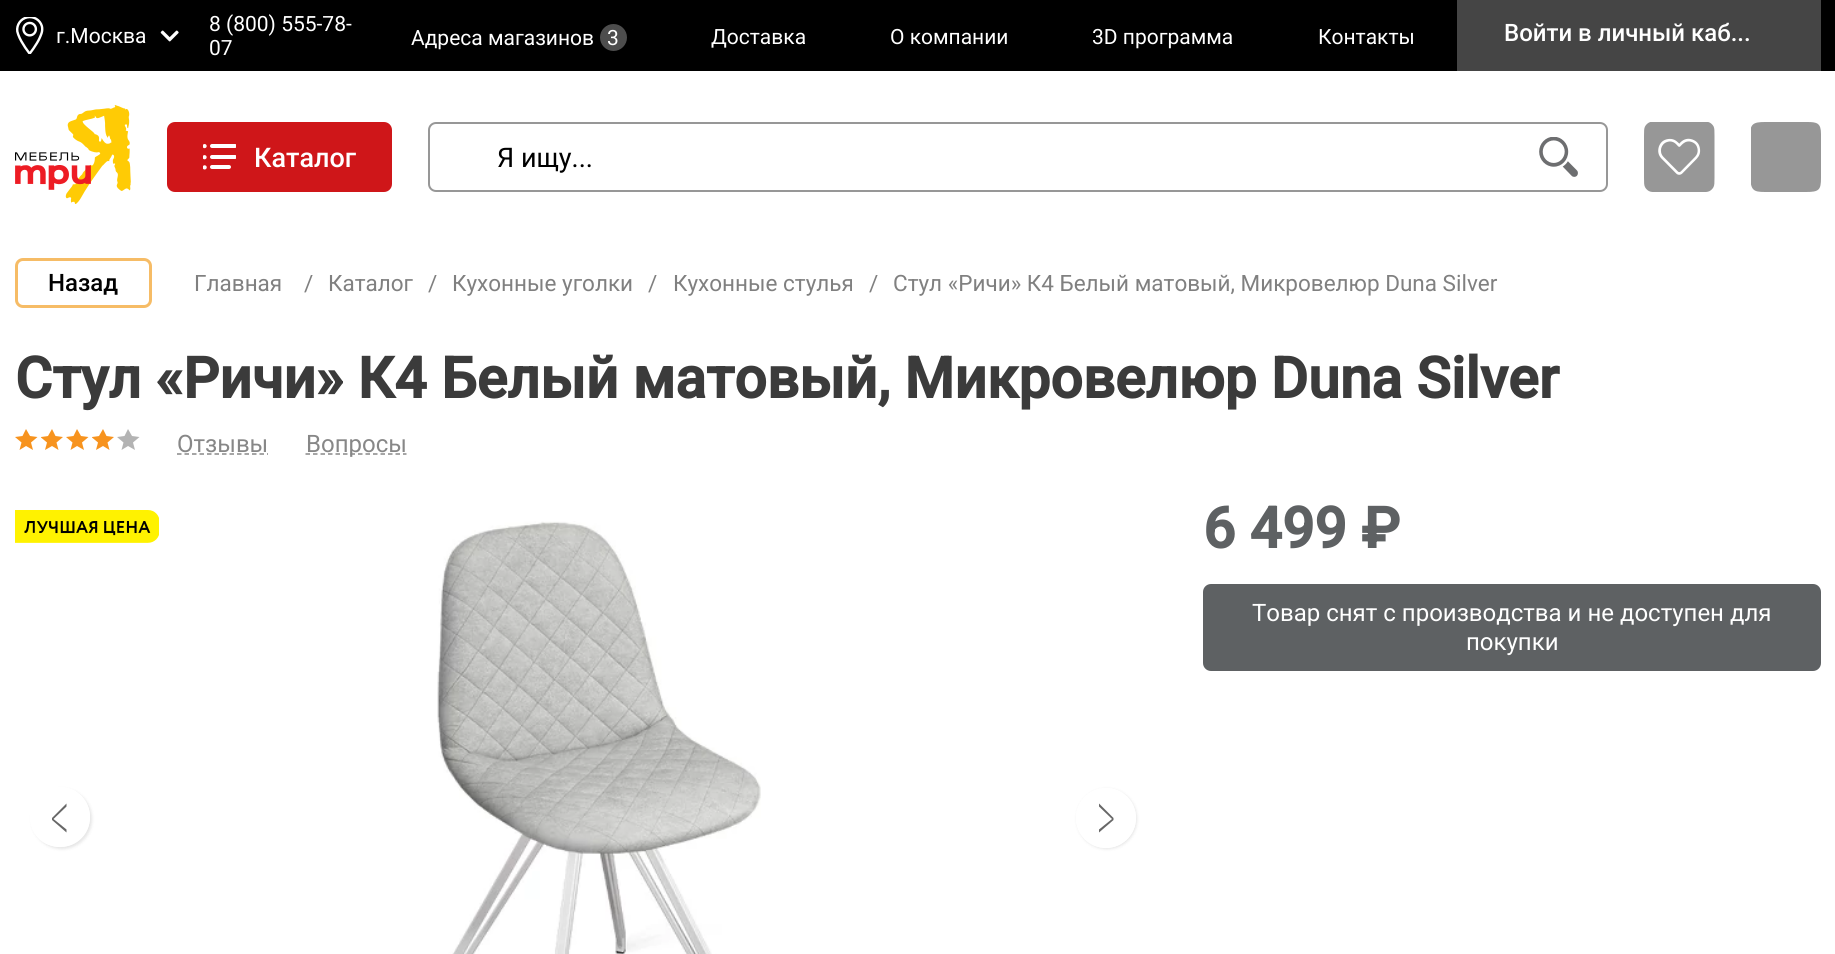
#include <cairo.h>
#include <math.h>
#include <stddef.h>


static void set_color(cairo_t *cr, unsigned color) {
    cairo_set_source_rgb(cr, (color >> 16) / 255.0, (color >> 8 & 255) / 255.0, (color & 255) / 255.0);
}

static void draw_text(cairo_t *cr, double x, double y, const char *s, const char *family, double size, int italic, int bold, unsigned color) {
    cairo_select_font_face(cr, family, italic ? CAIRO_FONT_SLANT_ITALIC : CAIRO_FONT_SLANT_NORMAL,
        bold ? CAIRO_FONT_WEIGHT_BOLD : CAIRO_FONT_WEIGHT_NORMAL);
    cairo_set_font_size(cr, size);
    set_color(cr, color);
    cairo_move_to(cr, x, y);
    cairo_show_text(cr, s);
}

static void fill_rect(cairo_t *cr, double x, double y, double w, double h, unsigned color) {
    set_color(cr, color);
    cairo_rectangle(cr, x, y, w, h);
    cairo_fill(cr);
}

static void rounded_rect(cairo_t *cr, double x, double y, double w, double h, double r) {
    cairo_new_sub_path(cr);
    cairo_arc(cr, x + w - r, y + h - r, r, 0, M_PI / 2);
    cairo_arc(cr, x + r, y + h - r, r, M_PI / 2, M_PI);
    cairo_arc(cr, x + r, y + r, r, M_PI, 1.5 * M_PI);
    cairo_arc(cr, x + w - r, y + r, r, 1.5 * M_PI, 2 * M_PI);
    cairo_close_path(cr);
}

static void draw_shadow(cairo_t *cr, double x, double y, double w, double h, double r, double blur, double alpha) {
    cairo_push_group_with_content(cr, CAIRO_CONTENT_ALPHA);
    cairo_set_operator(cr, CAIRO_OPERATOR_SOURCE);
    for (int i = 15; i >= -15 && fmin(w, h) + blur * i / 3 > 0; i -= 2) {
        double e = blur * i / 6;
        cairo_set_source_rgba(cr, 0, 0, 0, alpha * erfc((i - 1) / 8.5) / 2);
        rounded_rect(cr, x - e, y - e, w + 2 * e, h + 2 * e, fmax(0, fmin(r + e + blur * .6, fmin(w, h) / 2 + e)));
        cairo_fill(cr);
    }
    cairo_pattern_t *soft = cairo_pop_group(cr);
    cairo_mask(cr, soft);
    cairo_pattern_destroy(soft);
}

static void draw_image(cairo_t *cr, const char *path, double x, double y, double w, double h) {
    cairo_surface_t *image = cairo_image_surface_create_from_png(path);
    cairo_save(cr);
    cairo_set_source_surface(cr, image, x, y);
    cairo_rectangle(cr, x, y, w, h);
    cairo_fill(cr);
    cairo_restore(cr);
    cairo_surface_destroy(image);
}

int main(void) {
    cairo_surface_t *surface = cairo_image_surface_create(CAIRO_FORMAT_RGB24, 1835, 954);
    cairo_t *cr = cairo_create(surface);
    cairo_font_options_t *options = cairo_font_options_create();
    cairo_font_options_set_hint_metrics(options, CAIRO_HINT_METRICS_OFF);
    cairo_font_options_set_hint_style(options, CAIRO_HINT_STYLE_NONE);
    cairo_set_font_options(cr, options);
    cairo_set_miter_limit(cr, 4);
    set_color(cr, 0xFFFFFF);
    cairo_paint(cr);
    fill_rect(cr, 0, 0, 1835, 71, 0x000000);
    draw_image(cr, "assets/img1.png", 16, 17, 28, 37);
    draw_text(cr, 56, 43, "г.Москва", "Roboto", 21, 0, 0, 0xFFFFFF);
    draw_image(cr, "assets/img2.png", 160, 30, 19, 12);
    draw_text(cr, 209, 31, "8 (800) 555-78-", "Roboto", 21, 0, 0, 0xFFFFFF);
    draw_text(cr, 209, 55, "07", "Roboto", 21, 0, 0, 0xFFFFFF);
    draw_text(cr, 411, 45, "Адреса магазинов", "Roboto", 21, 0, 0, 0xFFFFFF);
    set_color(cr, 0x4D4D4D);
    cairo_new_path(cr);
    cairo_arc(cr, 613.5, 37.5, 13.5, 0, 2 * M_PI);
    cairo_fill(cr);
    draw_text(cr, 607, 45, "3", "Roboto", 21, 0, 0, 0xFFFFFF);
    draw_text(cr, 711, 44, "Доставка", "Roboto", 21, 0, 0, 0xFFFFFF);
    draw_text(cr, 890, 44, "О компании", "Roboto", 21, 0, 0, 0xFFFFFF);
    draw_text(cr, 1092, 44, "3D программа", "Roboto", 21, 0, 0, 0xFFFFFF);
    draw_text(cr, 1318, 44, "Контакты", "Roboto", 21, 0, 0, 0xFFFFFF);
    fill_rect(cr, 1457, 0, 364, 71, 0x454545);
    draw_text(cr, 1504, 41, "Войти в личный каб...", "Roboto Medium", 24, 0, 0, 0xFFFFFF);
    draw_image(cr, "assets/img3.png", 15, 105, 116, 99);
    set_color(cr, 0xCF1619);
    rounded_rect(cr, 168, 123, 223, 68, 7);
    cairo_fill_preserve(cr);
    cairo_stroke(cr);
    draw_image(cr, "assets/img4.png", 203, 144, 33, 26);
    draw_text(cr, 254, 167, "Каталог", "Roboto Medium", 27, 0, 0, 0xFFFFFF);
    rounded_rect(cr, 429, 123, 1178, 68, 7);
    set_color(cr, 0x979797);
    cairo_stroke(cr);
    draw_text(cr, 497, 167, "Я ищу...", "Roboto", 27, 0, 0, 0x000000);
    draw_image(cr, "assets/img5.png", 1539, 137, 39, 40);
    draw_image(cr, "assets/img6.png", 1644, 122, 71, 70);
    cairo_save(cr);
    cairo_rectangle(cr, 1751, 122, 70, 70);
    cairo_clip(cr);
    set_color(cr, 0x979797);
    cairo_new_path(cr);
    cairo_move_to(cr, 1750, 136);
    cairo_curve_to(cr, 1750, 124, 1753, 122, 1765, 122);
    cairo_line_to(cr, 1807, 122);
    cairo_curve_to(cr, 1817, 122, 1821, 123, 1821, 134);
    cairo_line_to(cr, 1821, 178);
    cairo_curve_to(cr, 1821, 190, 1819, 192, 1806, 192);
    cairo_line_to(cr, 1765, 192);
    cairo_curve_to(cr, 1753, 192, 1751, 190, 1750, 177);
    cairo_close_path(cr);
    cairo_fill(cr);
    cairo_restore(cr);
    rounded_rect(cr, 16.5, 259.5, 134, 47, 6.5);
    set_color(cr, 0xF6BC66);
    cairo_set_line_width(cr, 3);
    cairo_stroke(cr);
    draw_text(cr, 48, 291, "Назад", "Roboto Medium", 24, 0, 0, 0x000000);
    draw_text(cr, 194, 291, "Главная", "Roboto", 22.5, 0, 0, 0x808080);
    draw_text(cr, 304, 291, "/", "Roboto", 22.5, 0, 0, 0x808080);
    draw_text(cr, 328, 291, "Каталог", "Roboto", 22.5, 0, 0, 0x808080);
    draw_text(cr, 428, 291, "/", "Roboto", 22.5, 0, 0, 0x808080);
    draw_text(cr, 452, 291, "Кухонные уголки", "Roboto", 22.5, 0, 0, 0x808080);
    draw_text(cr, 648, 291, "/", "Roboto", 22.5, 0, 0, 0x808080);
    draw_text(cr, 673, 291, "Кухонные стулья", "Roboto", 22.5, 0, 0, 0x808080);
    draw_text(cr, 869, 291, "/", "Roboto", 22.5, 0, 0, 0x808080);
    draw_text(cr, 893, 291, "Стул «Ричи» К4 Белый матовый, Микровелюр Duna Silver", "Roboto", 22.5, 0, 0, 0x808080);
    draw_text(cr, 15, 398, "Стул «Ричи» К4 Белый матовый, Микровелюр Duna Silver", "Roboto", 57, 0, 1, 0x3B3B3B);
    set_color(cr, 0xF7931E);
    cairo_new_path(cr);
    cairo_move_to(cr, 26, 429);
    cairo_line_to(cr, 30, 436);
    cairo_line_to(cr, 37.5, 437);
    cairo_line_to(cr, 31, 442.5);
    cairo_line_to(cr, 33, 450);
    cairo_line_to(cr, 26, 446);
    cairo_line_to(cr, 19.5, 450);
    cairo_line_to(cr, 21.5, 442.5);
    cairo_line_to(cr, 15, 437);
    cairo_line_to(cr, 22.5, 436);
    cairo_close_path(cr);
    cairo_move_to(cr, 52, 429);
    cairo_line_to(cr, 48, 436);
    cairo_line_to(cr, 41, 437);
    cairo_line_to(cr, 41, 437.5);
    cairo_line_to(cr, 47, 442.5);
    cairo_line_to(cr, 45, 450);
    cairo_line_to(cr, 52, 446);
    cairo_line_to(cr, 58.5, 450);
    cairo_line_to(cr, 56.5, 442.5);
    cairo_line_to(cr, 63, 437);
    cairo_line_to(cr, 55.5, 436);
    cairo_close_path(cr);
    cairo_fill(cr);
    cairo_new_path(cr);
    cairo_move_to(cr, 77, 429);
    cairo_line_to(cr, 81, 436);
    cairo_line_to(cr, 88.5, 437);
    cairo_line_to(cr, 82, 442.5);
    cairo_line_to(cr, 84, 450);
    cairo_line_to(cr, 77, 446);
    cairo_line_to(cr, 70.5, 450);
    cairo_line_to(cr, 72.5, 442.5);
    cairo_line_to(cr, 66, 437);
    cairo_line_to(cr, 73.5, 436);
    cairo_close_path(cr);
    cairo_move_to(cr, 103, 429);
    cairo_line_to(cr, 99, 436);
    cairo_line_to(cr, 92, 437);
    cairo_line_to(cr, 92, 437.5);
    cairo_line_to(cr, 98, 442.5);
    cairo_line_to(cr, 96, 450);
    cairo_line_to(cr, 103, 446);
    cairo_line_to(cr, 109.5, 450);
    cairo_line_to(cr, 107.5, 442.5);
    cairo_line_to(cr, 114, 437);
    cairo_line_to(cr, 106.5, 436);
    cairo_close_path(cr);
    cairo_fill(cr);
    set_color(cr, 0xB3B3B3);
    cairo_new_path(cr);
    cairo_move_to(cr, 128, 429);
    cairo_line_to(cr, 132, 436);
    cairo_line_to(cr, 139.5, 437);
    cairo_line_to(cr, 133, 442.5);
    cairo_line_to(cr, 135, 450);
    cairo_line_to(cr, 128, 446);
    cairo_line_to(cr, 121.5, 450);
    cairo_line_to(cr, 123.5, 442.5);
    cairo_line_to(cr, 117, 437);
    cairo_line_to(cr, 124.5, 436);
    cairo_close_path(cr);
    cairo_fill(cr);
    draw_text(cr, 177, 452, "Отзывы", "Roboto", 24, 0, 0, 0x878787);
    cairo_new_path(cr);
    cairo_move_to(cr, 177, 454);
    cairo_line_to(cr, 268, 454);
    cairo_set_line_width(cr, 1.5);
    cairo_set_dash(cr, (double[]){4.5, 3}, 2, 0);
    cairo_stroke(cr);
    cairo_new_path(cr);
    cairo_move_to(cr, 305.5, 454);
    cairo_line_to(cr, 406.5, 454);
    cairo_stroke(cr);
    draw_text(cr, 306, 452, "Вопросы", "Roboto", 24, 0, 0, 0x878787);
    draw_image(cr, "assets/img7.png", 15, 510, 144, 33);
    draw_image(cr, "assets/img8.png", 437, 521, 324, 433);
    cairo_save(cr);
    cairo_set_fill_rule(cr, CAIRO_FILL_RULE_EVEN_ODD);
    cairo_new_path(cr);
    cairo_move_to(cr, 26, 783);
    cairo_line_to(cr, 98, 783);
    cairo_line_to(cr, 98, 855);
    cairo_line_to(cr, 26, 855);
    cairo_close_path(cr);
    cairo_move_to(cr, 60, 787);
    cairo_curve_to(cr, 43.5, 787, 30, 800.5, 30, 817);
    cairo_curve_to(cr, 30, 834, 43.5, 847, 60, 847);
    cairo_curve_to(cr, 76.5, 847, 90, 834, 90, 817);
    cairo_curve_to(cr, 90, 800.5, 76.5, 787, 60, 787);
    cairo_close_path(cr);
    cairo_clip(cr);
    set_color(cr, 0x000000);
    draw_shadow(cr, 32, 789, 60, 60, 30, 1.5, 0.1);
    cairo_restore(cr);
    cairo_set_source_rgba(cr, 1, 1, 1, 0.8);
    cairo_new_path(cr);
    cairo_move_to(cr, 60, 787);
    cairo_curve_to(cr, 43, 787, 30, 801, 30, 817);
    cairo_curve_to(cr, 30, 834, 43, 847, 60, 847);
    cairo_curve_to(cr, 77, 847, 90, 834, 90, 817);
    cairo_curve_to(cr, 90, 801, 77, 787, 60, 787);
    cairo_close_path(cr);
    cairo_fill(cr);
    set_color(cr, 0x676767);
    cairo_new_path(cr);
    cairo_move_to(cr, 66.5, 829.5);
    cairo_line_to(cr, 53.5, 819);
    cairo_line_to(cr, 66.5, 806.5);
    cairo_line_to(cr, 66.5, 803.5);
    cairo_line_to(cr, 52, 818);
    cairo_line_to(cr, 52, 820);
    cairo_line_to(cr, 66.5, 832.5);
    cairo_close_path(cr);
    cairo_fill(cr);
    cairo_save(cr);
    cairo_set_fill_rule(cr, CAIRO_FILL_RULE_EVEN_ODD);
    cairo_new_path(cr);
    cairo_move_to(cr, 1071, 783);
    cairo_line_to(cr, 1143, 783);
    cairo_line_to(cr, 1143, 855);
    cairo_line_to(cr, 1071, 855);
    cairo_close_path(cr);
    cairo_move_to(cr, 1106, 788);
    cairo_curve_to(cr, 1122.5, 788, 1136, 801.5, 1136, 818);
    cairo_curve_to(cr, 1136, 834.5, 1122.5, 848, 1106, 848);
    cairo_curve_to(cr, 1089.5, 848, 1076, 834.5, 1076, 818);
    cairo_curve_to(cr, 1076, 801.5, 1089.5, 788, 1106, 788);
    cairo_close_path(cr);
    cairo_clip(cr);
    set_color(cr, 0x000000);
    draw_shadow(cr, 1077, 789, 60, 60, 30, 1.5, 0.1);
    cairo_restore(cr);
    cairo_set_source_rgba(cr, 1, 1, 1, 0.8);
    cairo_arc(cr, 1106, 818, 30, 0, 2 * M_PI);
    cairo_fill(cr);
    set_color(cr, 0x676767);
    cairo_new_path(cr);
    cairo_move_to(cr, 1099, 829.5);
    cairo_line_to(cr, 1112, 819);
    cairo_line_to(cr, 1099, 806.5);
    cairo_line_to(cr, 1099, 803.5);
    cairo_line_to(cr, 1113.5, 818);
    cairo_line_to(cr, 1113.5, 820);
    cairo_line_to(cr, 1099, 832.5);
    cairo_close_path(cr);
    cairo_fill(cr);
    draw_text(cr, 1203, 548, "6 499 ₽", "Roboto", 57, 0, 1, 0x5E6163);
    rounded_rect(cr, 1203, 584, 618, 87, 8);
    cairo_fill(cr);
    draw_text(cr, 1252, 621, "Товар снят с производства и не доступен для", "Roboto", 24, 0, 0, 0xFFFFFF);
    draw_text(cr, 1466, 650, "покупки", "Roboto", 24, 0, 0, 0xFFFFFF);
    cairo_surface_write_to_png(surface, "output.png");
    cairo_font_options_destroy(options);
    cairo_destroy(cr);
    cairo_surface_destroy(surface);
    return 0;
}
